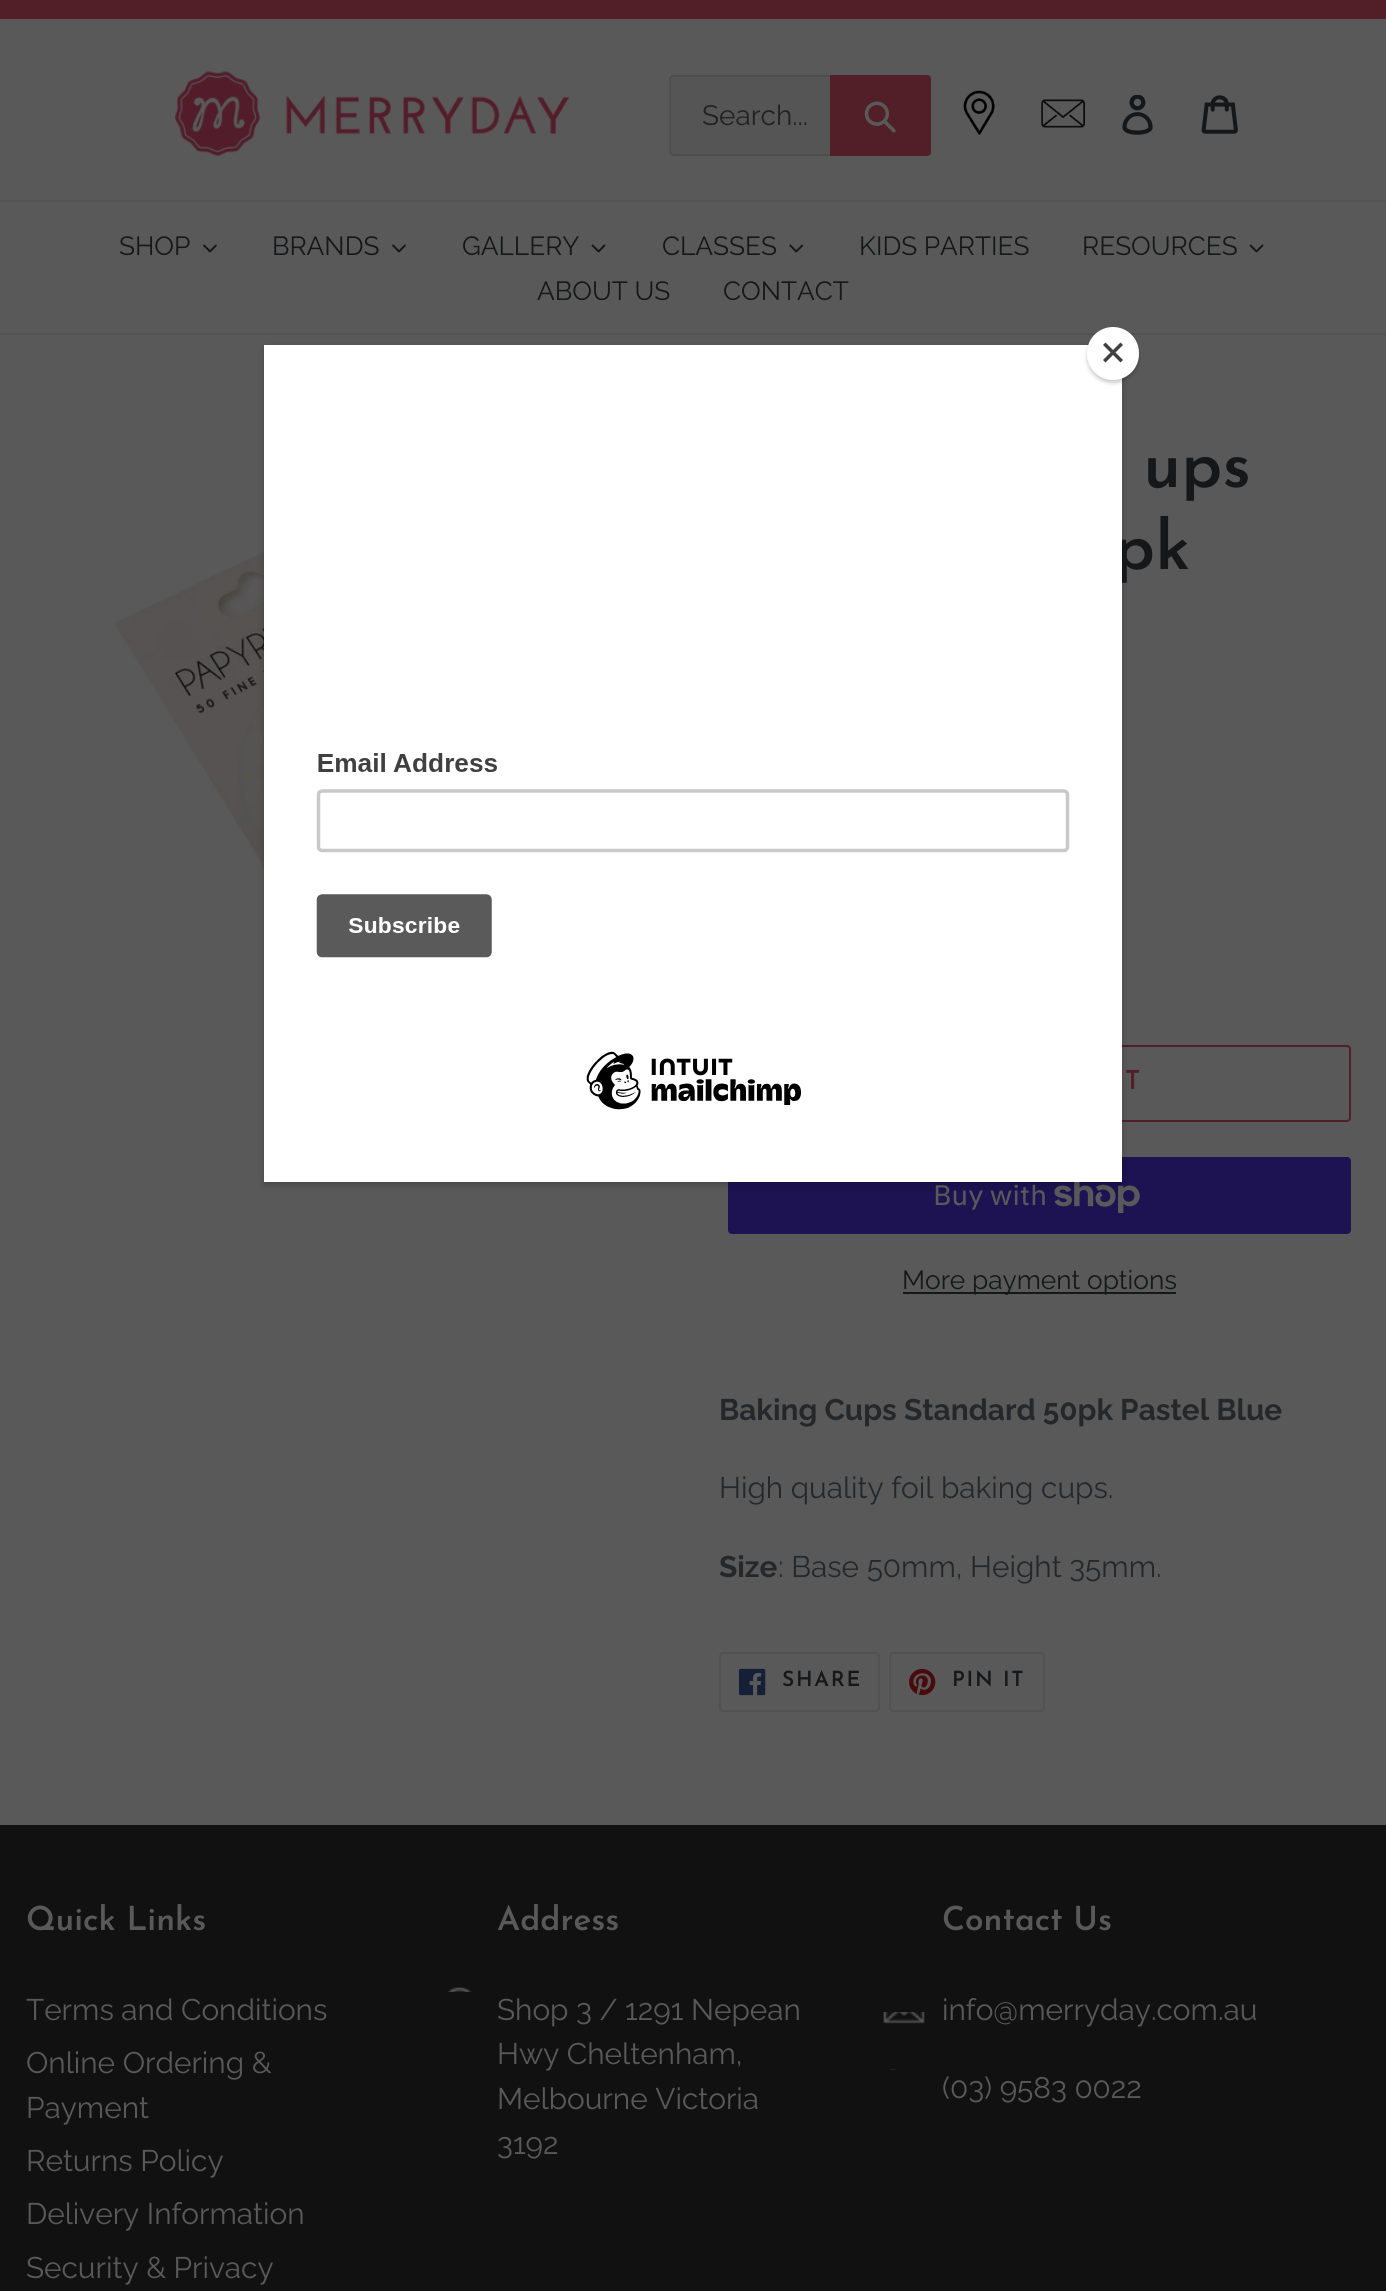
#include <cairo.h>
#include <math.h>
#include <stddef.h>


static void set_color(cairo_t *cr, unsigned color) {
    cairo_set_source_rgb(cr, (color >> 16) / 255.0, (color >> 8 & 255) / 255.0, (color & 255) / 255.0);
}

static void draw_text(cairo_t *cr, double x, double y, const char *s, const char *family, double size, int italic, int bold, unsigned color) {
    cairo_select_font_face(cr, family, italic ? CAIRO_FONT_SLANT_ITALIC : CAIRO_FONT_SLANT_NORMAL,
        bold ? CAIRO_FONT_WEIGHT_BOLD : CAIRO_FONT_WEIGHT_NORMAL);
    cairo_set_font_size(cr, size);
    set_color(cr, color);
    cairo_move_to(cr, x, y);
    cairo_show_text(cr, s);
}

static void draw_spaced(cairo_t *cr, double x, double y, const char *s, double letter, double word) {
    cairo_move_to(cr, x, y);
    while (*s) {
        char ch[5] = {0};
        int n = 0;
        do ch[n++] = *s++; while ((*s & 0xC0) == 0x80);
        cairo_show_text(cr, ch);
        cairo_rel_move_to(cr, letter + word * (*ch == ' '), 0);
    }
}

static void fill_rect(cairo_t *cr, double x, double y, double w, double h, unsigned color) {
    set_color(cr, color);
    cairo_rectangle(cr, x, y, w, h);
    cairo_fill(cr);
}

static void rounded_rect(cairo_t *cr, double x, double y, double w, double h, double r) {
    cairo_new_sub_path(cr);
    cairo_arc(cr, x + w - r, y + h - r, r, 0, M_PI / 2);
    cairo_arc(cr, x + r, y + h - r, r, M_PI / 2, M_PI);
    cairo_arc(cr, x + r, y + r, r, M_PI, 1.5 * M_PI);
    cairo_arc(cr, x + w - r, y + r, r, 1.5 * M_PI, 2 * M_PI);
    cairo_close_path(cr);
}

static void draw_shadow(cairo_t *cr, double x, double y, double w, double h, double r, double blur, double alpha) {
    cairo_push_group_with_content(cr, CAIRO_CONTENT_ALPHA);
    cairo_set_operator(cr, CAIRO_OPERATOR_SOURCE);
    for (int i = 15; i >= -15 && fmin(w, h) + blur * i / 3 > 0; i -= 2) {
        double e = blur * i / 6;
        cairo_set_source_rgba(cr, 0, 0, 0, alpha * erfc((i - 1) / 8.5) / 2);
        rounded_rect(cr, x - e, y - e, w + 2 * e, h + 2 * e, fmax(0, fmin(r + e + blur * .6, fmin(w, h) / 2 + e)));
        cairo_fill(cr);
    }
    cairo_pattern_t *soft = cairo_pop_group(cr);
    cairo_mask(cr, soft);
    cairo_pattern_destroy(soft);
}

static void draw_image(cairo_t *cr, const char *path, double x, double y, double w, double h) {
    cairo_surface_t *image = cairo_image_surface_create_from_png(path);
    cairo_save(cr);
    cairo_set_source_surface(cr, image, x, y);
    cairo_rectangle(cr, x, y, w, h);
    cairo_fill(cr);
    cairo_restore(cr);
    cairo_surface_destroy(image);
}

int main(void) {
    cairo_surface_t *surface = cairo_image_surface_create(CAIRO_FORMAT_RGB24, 1386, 2291);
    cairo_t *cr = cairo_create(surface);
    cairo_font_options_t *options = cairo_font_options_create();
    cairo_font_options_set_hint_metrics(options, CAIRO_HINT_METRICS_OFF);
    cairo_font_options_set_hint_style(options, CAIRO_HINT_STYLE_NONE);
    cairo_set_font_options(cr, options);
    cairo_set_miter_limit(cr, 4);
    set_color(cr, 0x595959);
    cairo_paint(cr);
    fill_rect(cr, 0, 0, 1386, 19, 0x521E27);
    draw_image(cr, "assets/img1.png", 175, 71, 394, 85);
    set_color(cr, 0x555555);
    cairo_new_path(cr);
    cairo_move_to(cr, 673, 76);
    cairo_line_to(cr, 930, 76);
    cairo_line_to(cr, 930, 155);
    cairo_line_to(cr, 673, 155);
    cairo_curve_to(cr, 671.5, 155, 670, 153.5, 670, 152);
    cairo_line_to(cr, 670, 79);
    cairo_curve_to(cr, 670, 77.5, 671.5, 76, 673, 76);
    cairo_close_path(cr);
    cairo_fill_preserve(cr);
    set_color(cr, 0x4E4E4E);
    cairo_stroke(cr);
    draw_text(cr, 702, 125, "Search...", "Raleway", 28, 0, 0, 0x222222);
    set_color(cr, 0x521E27);
    cairo_new_path(cr);
    cairo_move_to(cr, 830, 75);
    cairo_line_to(cr, 927, 75);
    cairo_curve_to(cr, 929, 75, 931, 77, 931, 79);
    cairo_line_to(cr, 931, 152);
    cairo_curve_to(cr, 931, 154, 929, 156, 927, 156);
    cairo_line_to(cr, 830, 156);
    cairo_close_path(cr);
    cairo_fill(cr);
    draw_image(cr, "assets/img2.png", 864, 101, 32, 32);
    draw_image(cr, "assets/img3.png", 963, 90, 32, 45);
    draw_image(cr, "assets/img4.png", 1041, 99, 44, 29);
    draw_image(cr, "assets/img5.png", 1122, 95, 31, 40);
    draw_image(cr, "assets/img6.png", 1201, 95, 37, 39);
    fill_rect(cr, 0, 333, 1386, 2, 0x515252);
    fill_rect(cr, 0, 200, 1386, 2, 0x545454);
    draw_text(cr, 119, 255, "SHOP", "Raleway", 26.25, 0, 0, 0x151719);
    draw_image(cr, "assets/img7.png", 203, 244, 14, 9);
    draw_text(cr, 272, 255, "BRANDS", "Raleway", 26.25, 0, 0, 0x151719);
    draw_image(cr, "assets/img7.png", 392, 244, 14, 9);
    draw_text(cr, 462, 255, "GALLERY", "Raleway", 26.25, 0, 0, 0x151719);
    draw_image(cr, "assets/img8.png", 591, 244, 15, 9);
    draw_text(cr, 662, 255, "CLASSES", "Raleway", 26.25, 0, 0, 0x151719);
    draw_image(cr, "assets/img9.png", 789, 244, 15, 9);
    draw_text(cr, 859, 255, "KIDS PARTIES", "Raleway", 26.25, 0, 0, 0x151719);
    draw_text(cr, 1082, 255, "RESOURCES", "Raleway", 26.25, 0, 0, 0x151719);
    draw_image(cr, "assets/img8.png", 1249, 244, 15, 9);
    draw_text(cr, 537, 300, "ABOUT US", "Raleway", 26.25, 0, 0, 0x151719);
    draw_text(cr, 723, 300, "CONTACT", "Raleway", 26.25, 0, 0, 0x151719);
    draw_image(cr, "assets/img11.png", 114, 509, 150, 494);
    rounded_rect(cr, 729, 1046, 621, 75, 3);
    set_color(cr, 0x521E27);
    cairo_stroke(cr);
    set_color(cr, 0x1D1252);
    rounded_rect(cr, 728, 1157, 623, 77, 4);
    cairo_fill(cr);
    draw_image(cr, "assets/img12.png", 1054, 1182, 86, 31);
    set_color(cr, 0x000000);
    draw_shadow(cr, 264, 348, 858, 837, 0, 3.5, 0.2);
    draw_text(cr, 1114, 569, "pk", "Josefin Sans SemiBold", 68, 0, 0, 0x151719);
    draw_image(cr, "assets/img10.png", 264, 345, 858, 837);
    set_color(cr, 0x000000);
    draw_shadow(cr, 1087, 331, 52, 52, 26, 2, 0.2);
    set_color(cr, 0xFFFFFF);
    rounded_rect(cr, 1087, 327, 52, 53, 26);
    cairo_fill(cr);
    set_color(cr, 0x414141);
    cairo_new_path(cr);
    cairo_move_to(cr, 1120.5, 342.5);
    cairo_line_to(cr, 1123, 345);
    cairo_line_to(cr, 1105.5, 362.5);
    cairo_line_to(cr, 1103, 360);
    cairo_close_path(cr);
    cairo_fill(cr);
    cairo_new_path(cr);
    cairo_move_to(cr, 1103, 345);
    cairo_line_to(cr, 1105.5, 342.5);
    cairo_line_to(cr, 1123, 360);
    cairo_line_to(cr, 1120.5, 362.5);
    cairo_close_path(cr);
    cairo_fill(cr);
    draw_text(cr, 1143, 487, "ups", "Josefin Sans SemiBold", 68, 0, 0, 0x151719);
    cairo_set_font_size(cr, 26.25);
    set_color(cr, 0x521E27);
    draw_spaced(cr, 1125, 1089, "T", 2, 0);
    draw_text(cr, 933, 1205, "Buy with", "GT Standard", 28, 0, 0, 0x595959);
    fill_rect(cr, 903, 1292, 273, 2, 0x151719);
    draw_text(cr, 902, 1289, "More payment options", "Raleway", 26.25, 0, 0, 0x151719);
    draw_text(cr, 719, 1420, "Baking Cups Standard 50pk Pastel Blue", "Raleway", 29.75, 0, 1, 0x25282B);
    draw_text(cr, 719, 1498, "High quality foil baking cups.", "Raleway", 29.75, 0, 0, 0x25282B);
    draw_text(cr, 719, 1577, "Size", "Raleway", 29.75, 0, 1, 0x25282B);
    draw_text(cr, 778, 1577, ": Base 50mm, Height 35mm.", "Raleway", 29.75, 0, 0, 0x25282B);
    rounded_rect(cr, 720, 1653, 159, 58, 3);
    set_color(cr, 0x515252);
    cairo_stroke(cr);
    draw_image(cr, "assets/img13.png", 739, 1668, 27, 28);
    cairo_select_font_face(cr, "Josefin Sans SemiBold", CAIRO_FONT_SLANT_NORMAL, CAIRO_FONT_WEIGHT_NORMAL);
    cairo_set_font_size(cr, 21);
    set_color(cr, 0x151719);
    draw_spaced(cr, 782, 1686, "SHARE", 1.75, 0);
    rounded_rect(cr, 890, 1653, 154, 58, 3);
    set_color(cr, 0x515252);
    cairo_stroke(cr);
    draw_image(cr, "assets/img14.png", 909, 1668, 27, 28);
    set_color(cr, 0x151719);
    draw_spaced(cr, 952, 1686, "PIN IT", 1.75, 0);
    fill_rect(cr, 0, 1825, 1386, 466, 0x111111);
    draw_text(cr, 26, 1930, "Quick Links", "Josefin Sans SemiBold", 33.25, 0, 0, 0x595959);
    draw_text(cr, 26, 2020, "Terms and Conditions", "Raleway", 29.75, 0, 0, 0x595959);
    draw_text(cr, 26, 2073, "Online Ordering &", "Raleway", 29.75, 0, 0, 0x595959);
    draw_text(cr, 26, 2118, "Payment", "Raleway", 29.75, 0, 0, 0x595959);
    draw_text(cr, 26, 2171, "Returns Policy", "Raleway", 29.75, 0, 0, 0x595959);
    draw_text(cr, 26, 2224, "Delivery Information", "Raleway", 29.75, 0, 0, 0x595959);
    draw_text(cr, 26, 2278, "Security & Privacy", "Raleway", 29.75, 0, 0, 0x595959);
    draw_text(cr, 497, 1930, "Address", "Josefin Sans SemiBold", 33.25, 0, 0, 0x595959);
    draw_image(cr, "assets/img15.png", 447, 1987, 25, 5);
    draw_text(cr, 497, 2020, "Shop 3 / 1291 Nepean", "Raleway", 29.75, 0, 0, 0x595959);
    draw_text(cr, 497, 2064, "Hwy Cheltenham,", "Raleway", 29.75, 0, 0, 0x595959);
    draw_text(cr, 497, 2109, "Melbourne Victoria", "Raleway", 29.75, 0, 0, 0x595959);
    draw_text(cr, 497, 2154, "3192", "Raleway", 29.75, 0, 0, 0x595959);
    draw_text(cr, 942, 1930, "Contact Us", "Josefin Sans SemiBold", 33.25, 0, 0, 0x595959);
    draw_text(cr, 942, 2020, "info@merryday.com.au", "Raleway", 29.75, 0, 0, 0x595959);
    draw_image(cr, "assets/img16.png", 883, 2012, 42, 58);
    draw_text(cr, 942, 2098, "(03) 9583 0022", "Raleway", 29.75, 0, 0, 0x595959);
    cairo_surface_write_to_png(surface, "output.png");
    cairo_font_options_destroy(options);
    cairo_destroy(cr);
    cairo_surface_destroy(surface);
    return 0;
}
